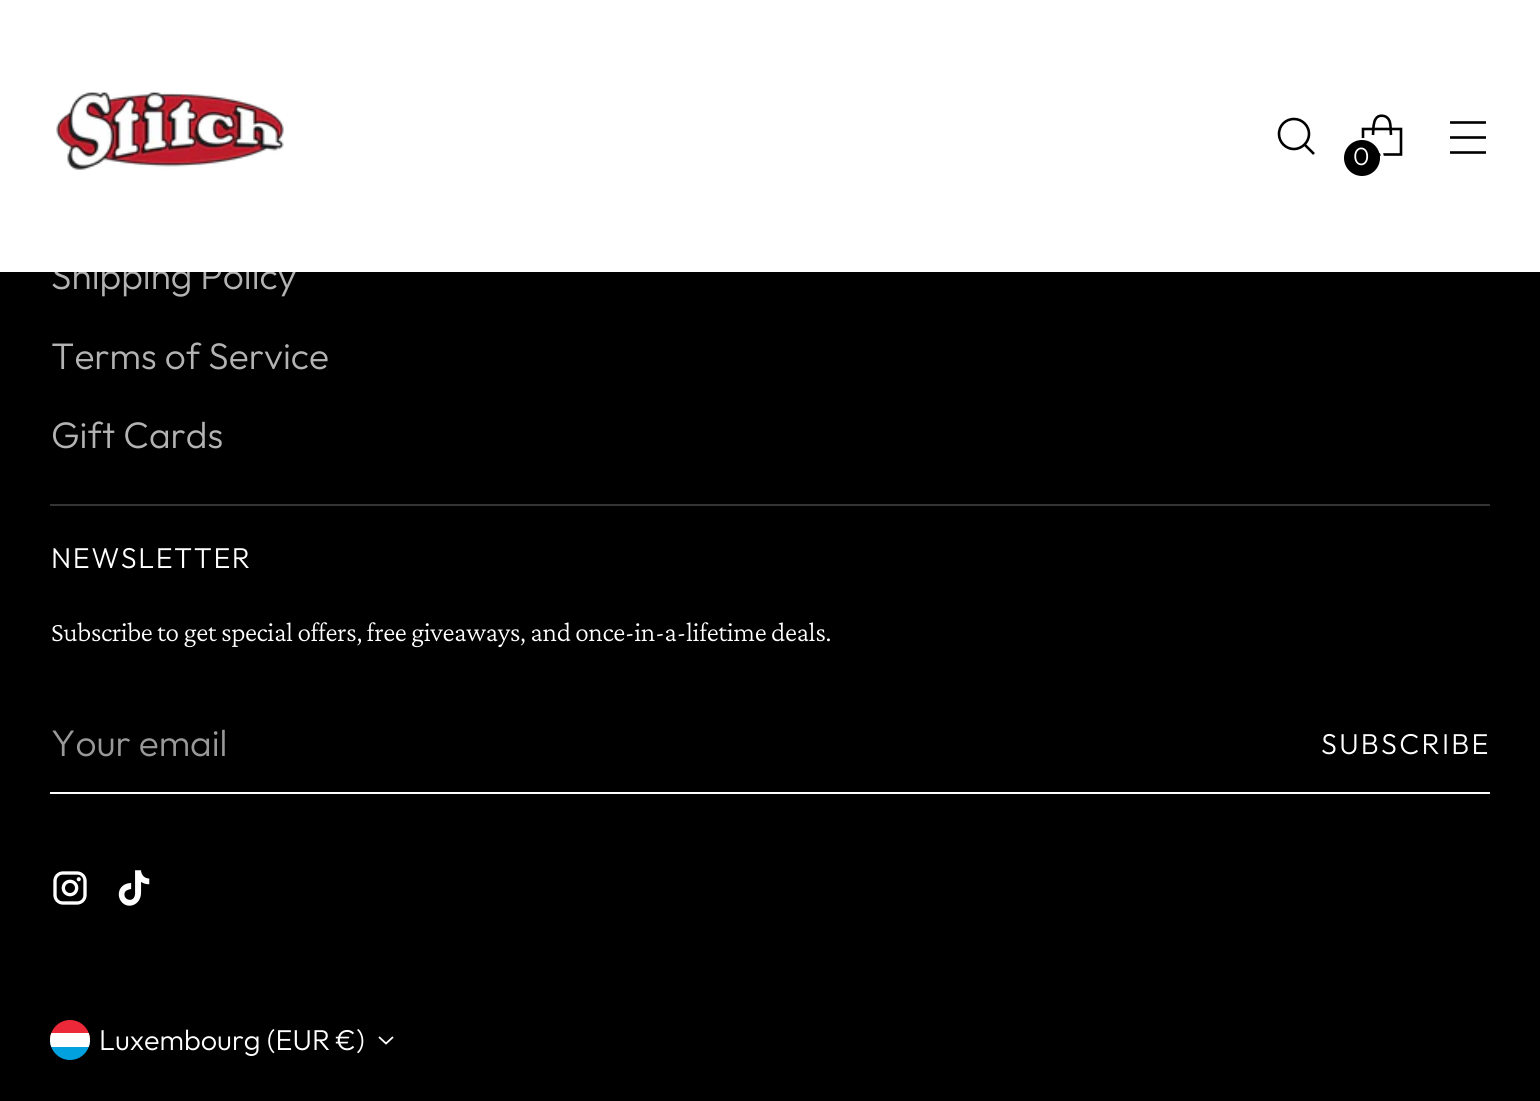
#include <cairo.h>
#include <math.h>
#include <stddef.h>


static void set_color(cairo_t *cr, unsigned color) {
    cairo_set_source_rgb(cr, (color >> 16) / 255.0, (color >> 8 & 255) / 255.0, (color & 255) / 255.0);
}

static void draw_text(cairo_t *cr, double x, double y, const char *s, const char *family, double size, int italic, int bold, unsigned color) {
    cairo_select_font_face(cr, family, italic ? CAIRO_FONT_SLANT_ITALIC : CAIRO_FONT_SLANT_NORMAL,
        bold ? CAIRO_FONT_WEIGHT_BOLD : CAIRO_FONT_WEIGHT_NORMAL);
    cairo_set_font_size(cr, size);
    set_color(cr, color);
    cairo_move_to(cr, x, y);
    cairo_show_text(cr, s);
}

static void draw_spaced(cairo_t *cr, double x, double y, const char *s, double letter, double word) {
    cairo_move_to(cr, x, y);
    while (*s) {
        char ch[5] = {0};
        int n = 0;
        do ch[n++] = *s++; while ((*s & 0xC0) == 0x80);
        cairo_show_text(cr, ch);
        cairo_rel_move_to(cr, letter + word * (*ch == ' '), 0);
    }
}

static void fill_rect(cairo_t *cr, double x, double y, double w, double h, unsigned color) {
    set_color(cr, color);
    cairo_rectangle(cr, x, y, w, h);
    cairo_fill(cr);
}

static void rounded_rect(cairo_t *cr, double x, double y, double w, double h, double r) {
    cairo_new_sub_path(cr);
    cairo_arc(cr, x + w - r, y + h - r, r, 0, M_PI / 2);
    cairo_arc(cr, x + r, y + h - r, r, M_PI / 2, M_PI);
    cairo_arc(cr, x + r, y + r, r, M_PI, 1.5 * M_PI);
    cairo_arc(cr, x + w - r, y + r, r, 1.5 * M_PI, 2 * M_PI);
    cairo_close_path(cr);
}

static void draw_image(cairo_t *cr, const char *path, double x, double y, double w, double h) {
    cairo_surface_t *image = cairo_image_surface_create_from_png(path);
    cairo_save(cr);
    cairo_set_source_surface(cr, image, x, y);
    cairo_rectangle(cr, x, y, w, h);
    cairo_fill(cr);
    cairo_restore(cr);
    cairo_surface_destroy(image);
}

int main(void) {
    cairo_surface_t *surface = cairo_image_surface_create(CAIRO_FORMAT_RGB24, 1540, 1101);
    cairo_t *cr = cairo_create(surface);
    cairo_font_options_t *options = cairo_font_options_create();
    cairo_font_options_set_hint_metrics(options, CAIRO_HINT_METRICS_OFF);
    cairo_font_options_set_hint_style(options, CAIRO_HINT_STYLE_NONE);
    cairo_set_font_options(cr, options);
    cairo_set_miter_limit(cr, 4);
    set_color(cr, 0x000000);
    cairo_paint(cr);
    draw_text(cr, 51, 289, "Shipping Policy", "Outfit Light", 37, 0, 0, 0xB3B3B3);
    fill_rect(cr, 0, 0, 1540, 272, 0xFFFFFF);
    draw_image(cr, "assets/img1.png", 56, 91, 228, 79);
    cairo_new_path(cr);
    cairo_move_to(cr, 1294, 149);
    cairo_curve_to(cr, 1302, 149, 1309, 142, 1309, 134);
    cairo_curve_to(cr, 1309, 125.5, 1302, 119, 1294, 119);
    cairo_curve_to(cr, 1285.5, 119, 1279, 125.5, 1279, 134);
    cairo_curve_to(cr, 1279, 142, 1285.5, 149, 1294, 149);
    cairo_close_path(cr);
    set_color(cr, 0x000000);
    cairo_set_line_width(cr, 2.6);
    cairo_set_line_cap(cr, CAIRO_LINE_CAP_ROUND);
    cairo_stroke(cr);
    cairo_new_path(cr);
    cairo_move_to(cr, 1304.5, 144.5);
    cairo_line_to(cr, 1314, 154);
    cairo_set_line_cap(cr, CAIRO_LINE_CAP_BUTT);
    cairo_stroke(cr);
    cairo_new_path(cr);
    cairo_move_to(cr, 1450, 137.5);
    cairo_line_to(cr, 1486, 137.5);
    cairo_move_to(cr, 1450, 122.5);
    cairo_line_to(cr, 1486, 122.5);
    cairo_move_to(cr, 1450, 152.5);
    cairo_line_to(cr, 1486, 152.5);
    cairo_stroke(cr);
    cairo_new_path(cr);
    cairo_move_to(cr, 1391, 135);
    cairo_curve_to(cr, 1390.5, 130.5, 1391, 125.5, 1389.5, 121);
    cairo_curve_to(cr, 1388.5, 118.5, 1386.5, 116.5, 1384, 116);
    cairo_curve_to(cr, 1372.5, 113.5, 1373.5, 128, 1373, 135);
    cairo_set_line_join(cr, CAIRO_LINE_JOIN_BEVEL);
    cairo_stroke(cr);
    cairo_new_path(cr);
    cairo_move_to(cr, 1401, 154.5);
    cairo_line_to(cr, 1401, 129);
    cairo_line_to(cr, 1363, 129);
    cairo_line_to(cr, 1363, 154.5);
    cairo_close_path(cr);
    cairo_set_line_join(cr, CAIRO_LINE_JOIN_MITER);
    cairo_stroke(cr);
    cairo_arc(cr, 1363, 159, 19.5, 0, 2 * M_PI);
    set_color(cr, 0xFFFFFF);
    cairo_set_line_width(cr, 3);
    cairo_stroke(cr);
    set_color(cr, 0x000000);
    cairo_arc(cr, 1362, 158, 18, 0, 2 * M_PI);
    cairo_fill(cr);
    draw_text(cr, 1353, 165, "0", "Outfit Light", 25, 0, 0, 0xFFFFFF);
    fill_rect(cr, 50, 504, 1440, 2, 0x333333);
    draw_text(cr, 51, 369, "Terms of Service", "Outfit Light", 37, 0, 0, 0xB3B3B3);
    draw_text(cr, 51, 448, "Gift Cards", "Outfit Light", 37, 0, 0, 0xB3B3B3);
    cairo_set_font_size(cr, 28.75);
    set_color(cr, 0xFFFFFF);
    draw_spaced(cr, 51, 568, "NEWSLETTER", 1.5, 0);
    cairo_select_font_face(cr, "Crimson Pro Light", CAIRO_FONT_SLANT_NORMAL, CAIRO_FONT_WEIGHT_NORMAL);
    cairo_set_font_size(cr, 27.5);
    draw_spaced(cr, 51, 641, "Subscribe to get special offers, free giveaways, and once-in-a-lifetime deals.", -0.4, 0);
    fill_rect(cr, 50, 792, 1440, 2, 0xFFFFFF);
    draw_text(cr, 51, 756, "Your email", "Outfit Light", 37, 0, 0, 0x999999);
    cairo_set_font_size(cr, 28.75);
    set_color(cr, 0xFFFFFF);
    draw_spaced(cr, 1321, 754, "SUBSCRIBE", 2.25, 0);
    draw_image(cr, "assets/img2.png", 53, 871, 34, 34);
    draw_image(cr, "assets/img3.png", 118, 870, 32, 36);
    set_color(cr, 0x00A1DE);
    cairo_new_path(cr);
    cairo_move_to(cr, 50, 1040);
    cairo_line_to(cr, 90, 1040);
    cairo_curve_to(cr, 90, 1051, 81, 1060, 70, 1060);
    cairo_curve_to(cr, 59, 1060, 50, 1051, 50, 1040);
    cairo_close_path(cr);
    cairo_fill(cr);
    set_color(cr, 0xED2939);
    cairo_new_path(cr);
    cairo_move_to(cr, 70, 1020);
    cairo_curve_to(cr, 81, 1020, 90, 1029, 90, 1040);
    cairo_line_to(cr, 50, 1040);
    cairo_curve_to(cr, 50, 1029, 59, 1020, 70, 1020);
    cairo_close_path(cr);
    cairo_fill(cr);
    cairo_save(cr);
    rounded_rect(cr, 50, 1020, 40, 40, 20);
    cairo_clip(cr);
    fill_rect(cr, 50, 1033, 40, 14, 0xFFFFFF);
    cairo_restore(cr);
    draw_text(cr, 99, 1050, "Luxembourg (EUR", "Outfit Light", 28.75, 0, 0, 0xFFFFFF);
    draw_text(cr, 335, 1050, "€)", "Outfit Light", 28.75, 0, 0, 0xFFFFFF);
    cairo_new_path(cr);
    cairo_move_to(cr, 379, 1037);
    cairo_line_to(cr, 386, 1043.5);
    cairo_line_to(cr, 393, 1037);
    cairo_set_line_width(cr, 1.8);
    cairo_stroke(cr);
    cairo_surface_write_to_png(surface, "output.png");
    cairo_font_options_destroy(options);
    cairo_destroy(cr);
    cairo_surface_destroy(surface);
    return 0;
}
